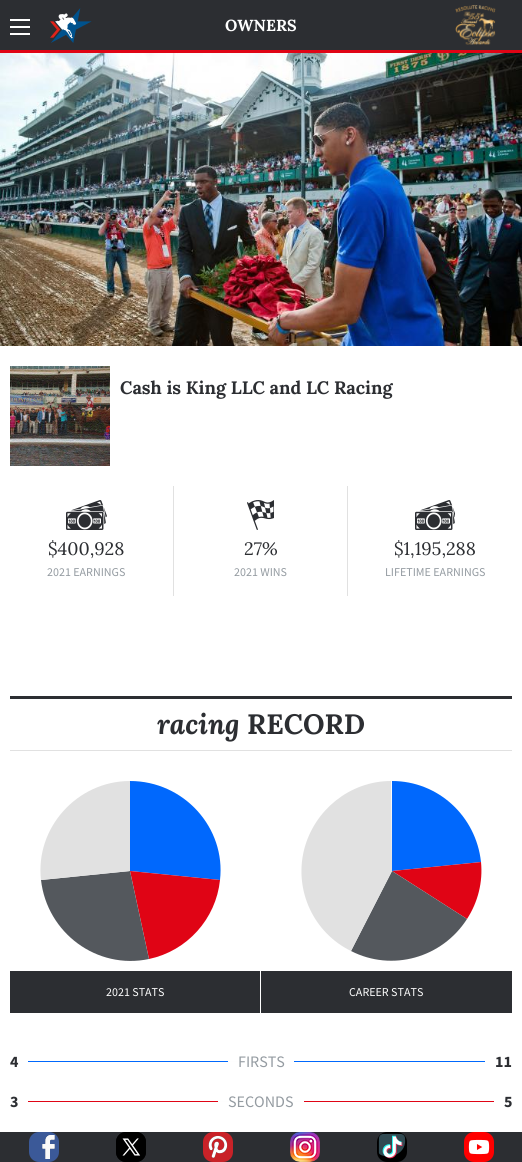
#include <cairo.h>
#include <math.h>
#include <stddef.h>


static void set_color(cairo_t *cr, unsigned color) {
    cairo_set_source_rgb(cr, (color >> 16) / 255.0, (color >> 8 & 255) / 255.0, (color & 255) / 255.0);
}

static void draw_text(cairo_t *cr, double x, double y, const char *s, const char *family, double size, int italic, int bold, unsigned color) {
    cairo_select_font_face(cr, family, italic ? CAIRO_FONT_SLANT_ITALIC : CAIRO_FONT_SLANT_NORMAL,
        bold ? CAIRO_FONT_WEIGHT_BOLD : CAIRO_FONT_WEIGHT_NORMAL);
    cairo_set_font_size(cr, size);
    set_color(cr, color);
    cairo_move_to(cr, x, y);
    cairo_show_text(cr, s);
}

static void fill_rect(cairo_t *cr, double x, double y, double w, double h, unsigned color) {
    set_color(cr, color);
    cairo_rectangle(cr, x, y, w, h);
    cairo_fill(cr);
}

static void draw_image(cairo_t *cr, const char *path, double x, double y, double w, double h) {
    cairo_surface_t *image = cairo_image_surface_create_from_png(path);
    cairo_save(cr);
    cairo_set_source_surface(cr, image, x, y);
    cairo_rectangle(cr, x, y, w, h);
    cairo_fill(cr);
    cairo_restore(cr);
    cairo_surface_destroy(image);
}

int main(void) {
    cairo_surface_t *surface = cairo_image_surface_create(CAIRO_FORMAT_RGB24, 522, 1162);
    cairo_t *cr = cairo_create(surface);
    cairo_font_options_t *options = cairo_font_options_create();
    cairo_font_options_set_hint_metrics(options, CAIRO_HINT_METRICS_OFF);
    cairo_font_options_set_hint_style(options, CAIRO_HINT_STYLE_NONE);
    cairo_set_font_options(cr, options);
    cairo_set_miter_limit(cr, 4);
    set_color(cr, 0xFFFFFF);
    cairo_paint(cr);
    fill_rect(cr, 0, 0, 522, 50, 0x2C2E32);
    fill_rect(cr, 0, 50, 522, 3, 0xE00415);
    fill_rect(cr, 10, 33, 20, 2, 0xFEFEFE);
    fill_rect(cr, 10, 26, 20, 2, 0xFEFEFE);
    fill_rect(cr, 10, 19, 20, 2, 0xFEFEFE);
    draw_image(cr, "assets/img1.png", 50, 8, 42, 35);
    draw_text(cr, 225, 31, "OWNERS", "Lora", 16, 0, 1, 0xFEFEFE);
    draw_image(cr, "assets/img2.png", 455, 5, 41, 40);
    draw_image(cr, "assets/img3.png", 0, 53, 522, 293);
    draw_image(cr, "assets/img4.png", 10, 366, 100, 100);
    draw_text(cr, 120, 394, "Cash is King LLC and LC Racing", "Lora", 18, 0, 1, 0x2C2E32);
    fill_rect(cr, 173, 486, 1, 110, 0xE1E1E1);
    draw_image(cr, "assets/img5.png", 66, 500, 41, 30);
    draw_text(cr, 48, 555, "$400,928", "Lora", 18, 0, 0, 0x2C2E32);
    draw_text(cr, 47, 576, "2021 EARNINGS", "Source Sans Pro", 12, 0, 0, 0x949BA1);
    fill_rect(cr, 347, 486, 1, 110, 0xE1E1E1);
    draw_image(cr, "assets/img6.png", 247, 500, 27, 30);
    draw_text(cr, 244, 555, "27%", "Lora", 18, 0, 0, 0x2C2E32);
    draw_text(cr, 234, 576, "2021 WINS", "Source Sans Pro", 12, 0, 0, 0x949BA1);
    draw_image(cr, "assets/img7.png", 415, 500, 40, 30);
    draw_text(cr, 394, 555, "$1,195,288", "Lora", 18, 0, 0, 0x2C2E32);
    draw_text(cr, 385, 576, "LIFETIME EARNINGS", "Source Sans Pro", 12, 0, 0, 0x949BA1);
    fill_rect(cr, 10, 696, 502, 3, 0x2C2E32);
    fill_rect(cr, 10, 750, 502, 1, 0xE1E1E1);
    draw_text(cr, 157, 734, "racing", "Lora", 28, 1, 1, 0x2C2E32);
    draw_text(cr, 247, 734, "RECORD", "Lora", 28, 0, 1, 0x2C2E32);
    set_color(cr, 0x0068FD);
    cairo_new_path(cr);
    cairo_move_to(cr, 130, 871);
    cairo_line_to(cr, 130, 781);
    cairo_curve_to(cr, 184, 781, 226, 828, 220, 880);
    cairo_close_path(cr);
    cairo_fill(cr);
    set_color(cr, 0xE00415);
    cairo_new_path(cr);
    cairo_move_to(cr, 130, 871);
    cairo_line_to(cr, 220, 880);
    cairo_curve_to(cr, 216, 919, 187, 951, 149, 959);
    cairo_close_path(cr);
    cairo_fill(cr);
    set_color(cr, 0x54585D);
    cairo_new_path(cr);
    cairo_move_to(cr, 130, 871);
    cairo_line_to(cr, 149, 959);
    cairo_curve_to(cr, 97, 970, 47, 933, 41, 880);
    cairo_close_path(cr);
    cairo_fill(cr);
    set_color(cr, 0xE1E1E1);
    cairo_new_path(cr);
    cairo_move_to(cr, 130, 871);
    cairo_line_to(cr, 41, 880);
    cairo_curve_to(cr, 35, 828, 77, 781, 130, 781);
    cairo_close_path(cr);
    cairo_fill(cr);
    set_color(cr, 0x0068FD);
    cairo_new_path(cr);
    cairo_move_to(cr, 392, 871);
    cairo_line_to(cr, 392, 781);
    cairo_curve_to(cr, 438, 781, 476, 816, 481, 862);
    cairo_close_path(cr);
    cairo_fill(cr);
    set_color(cr, 0xE00415);
    cairo_new_path(cr);
    cairo_move_to(cr, 392, 871);
    cairo_line_to(cr, 481, 862);
    cairo_curve_to(cr, 483, 882, 478, 902, 467, 919);
    cairo_close_path(cr);
    cairo_fill(cr);
    set_color(cr, 0x54585D);
    cairo_new_path(cr);
    cairo_move_to(cr, 392, 871);
    cairo_line_to(cr, 467, 919);
    cairo_curve_to(cr, 442, 958, 392, 972, 351, 951);
    cairo_close_path(cr);
    cairo_fill(cr);
    set_color(cr, 0xE1E1E1);
    cairo_new_path(cr);
    cairo_move_to(cr, 392, 871);
    cairo_line_to(cr, 351, 951);
    cairo_curve_to(cr, 314, 933, 294, 891, 304, 850);
    cairo_curve_to(cr, 314, 810, 350, 781, 391, 781);
    cairo_close_path(cr);
    cairo_fill(cr);
    fill_rect(cr, 10, 971, 250, 42, 0x2C2E32);
    draw_text(cr, 106, 996, "2021 STATS", "Source Sans Pro", 12, 0, 0, 0xFEFEFE);
    fill_rect(cr, 261, 971, 251, 42, 0x2C2E32);
    draw_text(cr, 349, 996, "CAREER STATS", "Source Sans Pro", 12, 0, 0, 0xFEFEFE);
    draw_text(cr, 10, 1067, "4", "Source Sans Pro", 16, 0, 1, 0x2C2E32);
    fill_rect(cr, 28, 1061, 457, 1, 0x0068FD);
    fill_rect(cr, 228, 1061, 66, 1, 0xFEFEFE);
    draw_text(cr, 238, 1067, "FIRSTS", "Source Sans Pro", 16, 0, 0, 0x949BA1);
    draw_text(cr, 495, 1067, "11", "Source Sans Pro", 16, 0, 1, 0x2C2E32);
    draw_text(cr, 10, 1107, "3", "Source Sans Pro", 16, 0, 1, 0x2C2E32);
    fill_rect(cr, 28, 1101, 466, 1, 0xE00415);
    fill_rect(cr, 218, 1101, 86, 1, 0xFEFEFE);
    draw_text(cr, 228, 1107, "SECONDS", "Source Sans Pro", 16, 0, 0, 0x949BA1);
    draw_text(cr, 504, 1107, "5", "Source Sans Pro", 16, 0, 1, 0x2C2E32);
    fill_rect(cr, 0, 1132, 522, 30, 0x2C2E32);
    draw_image(cr, "assets/img8.png", 29, 1132, 30, 30);
    draw_image(cr, "assets/img9.png", 116, 1132, 30, 30);
    draw_image(cr, "assets/img10.png", 203, 1132, 30, 30);
    draw_image(cr, "assets/img11.png", 290, 1132, 30, 30);
    draw_image(cr, "assets/img12.png", 377, 1132, 30, 30);
    draw_image(cr, "assets/img13.png", 464, 1132, 30, 30);
    cairo_surface_write_to_png(surface, "output.png");
    cairo_font_options_destroy(options);
    cairo_destroy(cr);
    cairo_surface_destroy(surface);
    return 0;
}
